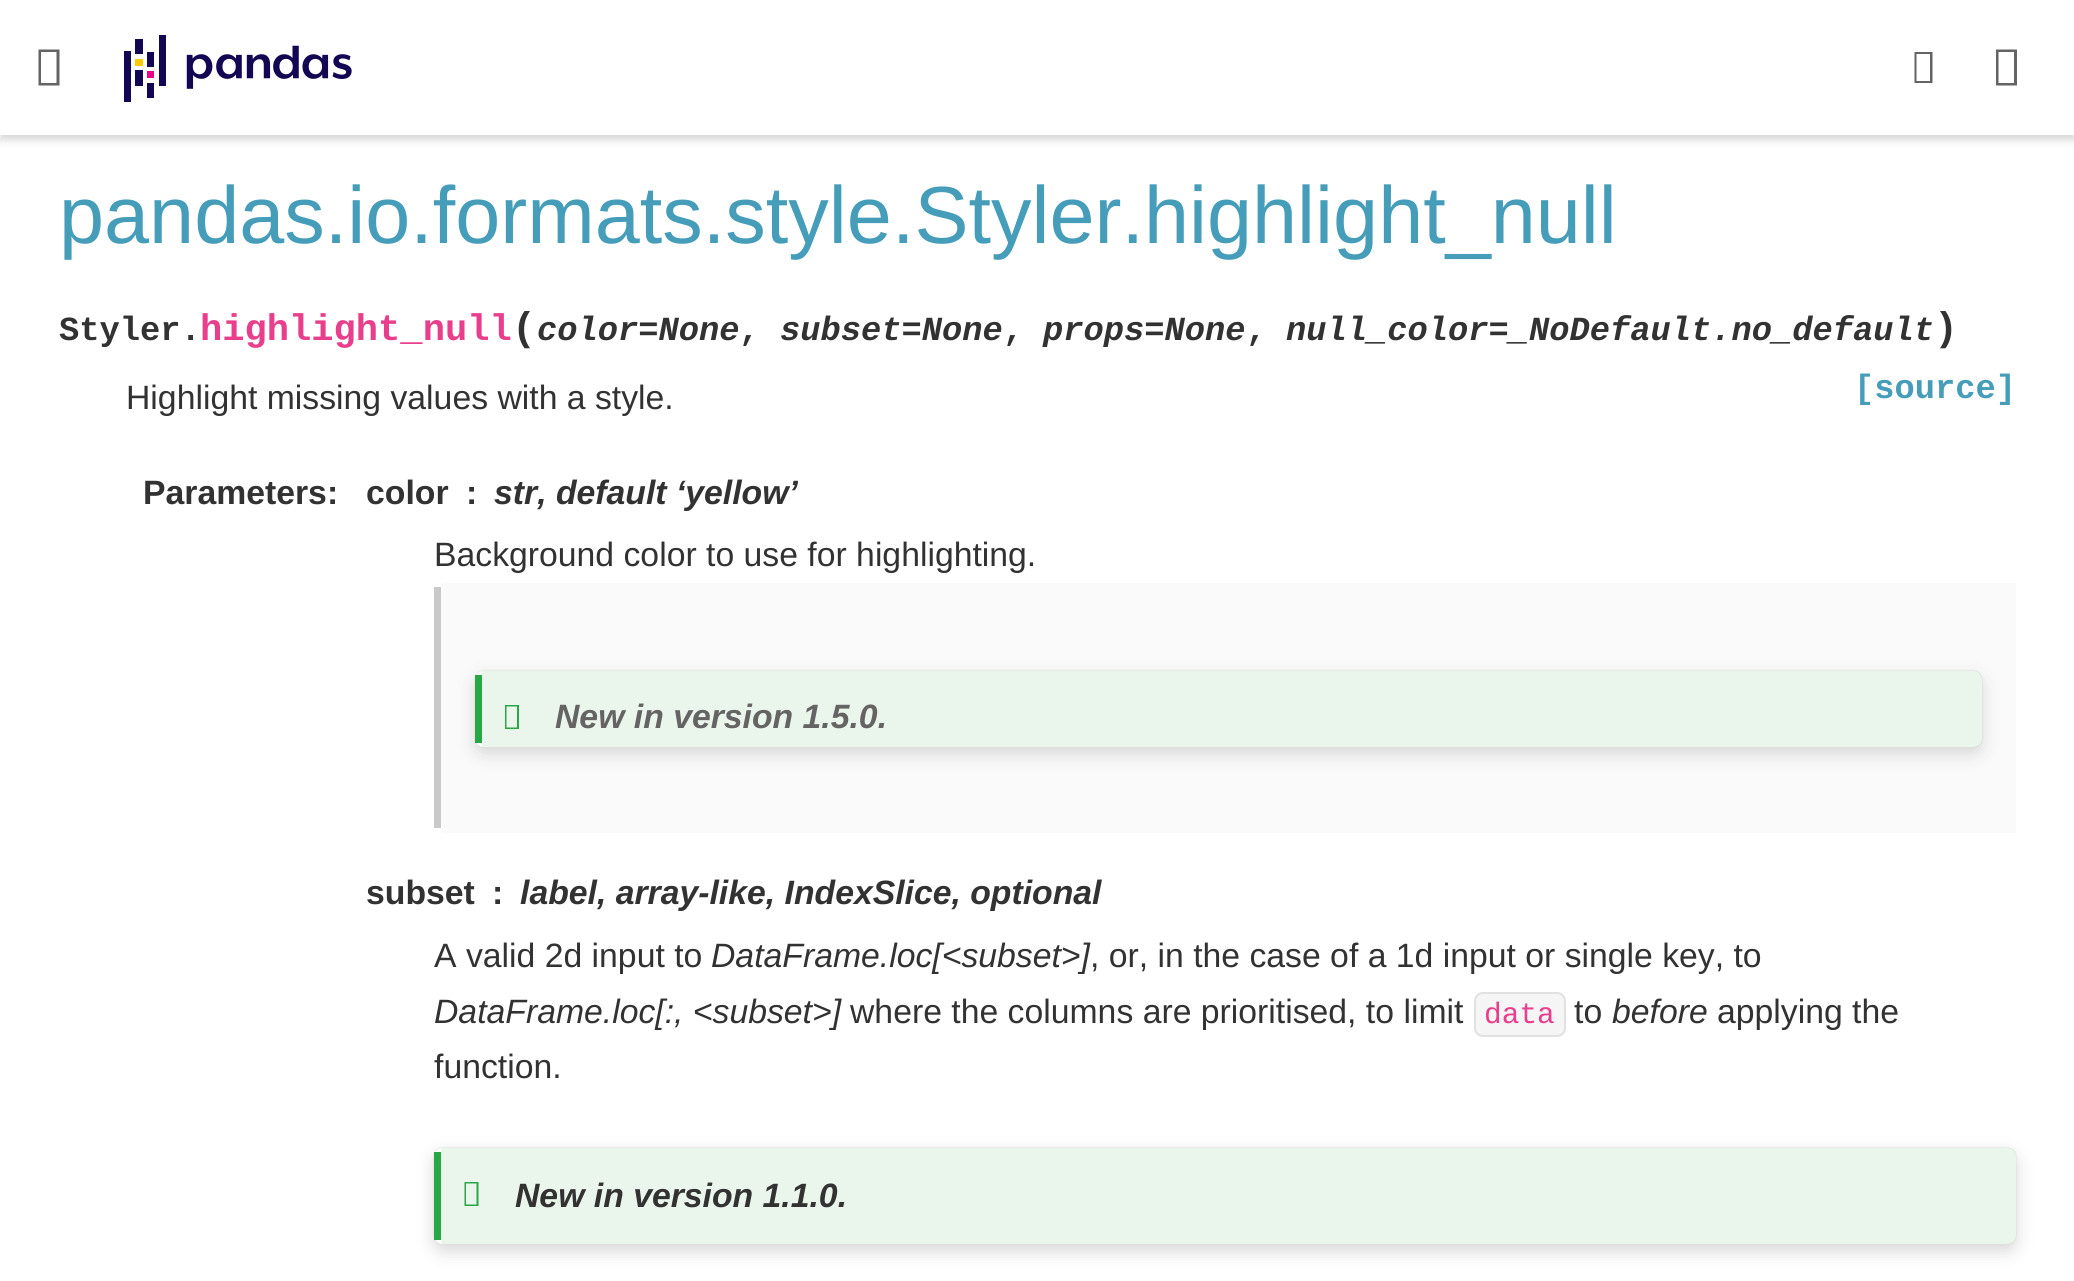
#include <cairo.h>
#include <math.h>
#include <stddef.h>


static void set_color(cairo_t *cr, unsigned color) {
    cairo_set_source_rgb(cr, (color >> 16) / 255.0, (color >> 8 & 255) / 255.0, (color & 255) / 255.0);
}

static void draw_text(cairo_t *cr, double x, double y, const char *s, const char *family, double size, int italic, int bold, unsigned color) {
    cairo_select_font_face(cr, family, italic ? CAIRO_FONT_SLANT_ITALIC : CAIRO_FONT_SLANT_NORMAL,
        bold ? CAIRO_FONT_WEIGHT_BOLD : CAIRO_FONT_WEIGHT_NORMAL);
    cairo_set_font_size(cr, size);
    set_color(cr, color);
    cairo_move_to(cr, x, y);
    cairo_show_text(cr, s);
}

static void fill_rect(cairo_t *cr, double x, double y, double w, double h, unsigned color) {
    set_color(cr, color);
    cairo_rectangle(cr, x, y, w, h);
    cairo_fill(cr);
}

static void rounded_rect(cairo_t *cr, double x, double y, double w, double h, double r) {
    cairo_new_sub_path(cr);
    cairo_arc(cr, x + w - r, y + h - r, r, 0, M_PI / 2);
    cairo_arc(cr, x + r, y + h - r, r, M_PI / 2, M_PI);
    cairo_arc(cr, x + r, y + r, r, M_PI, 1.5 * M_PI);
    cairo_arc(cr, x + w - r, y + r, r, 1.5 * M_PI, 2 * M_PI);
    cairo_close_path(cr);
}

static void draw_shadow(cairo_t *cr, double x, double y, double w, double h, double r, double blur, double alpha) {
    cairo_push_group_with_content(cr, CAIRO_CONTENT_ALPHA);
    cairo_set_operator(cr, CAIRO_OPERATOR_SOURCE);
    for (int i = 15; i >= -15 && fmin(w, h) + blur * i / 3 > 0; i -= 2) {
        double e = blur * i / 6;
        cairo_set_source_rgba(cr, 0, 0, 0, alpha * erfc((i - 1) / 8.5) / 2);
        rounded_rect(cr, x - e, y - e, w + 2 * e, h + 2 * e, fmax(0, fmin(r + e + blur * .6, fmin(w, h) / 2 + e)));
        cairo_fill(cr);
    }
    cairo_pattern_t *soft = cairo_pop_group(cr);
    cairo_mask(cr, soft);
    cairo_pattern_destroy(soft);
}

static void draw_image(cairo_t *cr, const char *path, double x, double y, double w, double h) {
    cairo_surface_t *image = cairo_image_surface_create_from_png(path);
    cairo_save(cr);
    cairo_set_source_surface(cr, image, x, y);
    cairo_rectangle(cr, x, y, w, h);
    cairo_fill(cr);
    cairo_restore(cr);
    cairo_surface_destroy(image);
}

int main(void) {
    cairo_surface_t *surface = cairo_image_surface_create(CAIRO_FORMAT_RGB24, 2074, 1281);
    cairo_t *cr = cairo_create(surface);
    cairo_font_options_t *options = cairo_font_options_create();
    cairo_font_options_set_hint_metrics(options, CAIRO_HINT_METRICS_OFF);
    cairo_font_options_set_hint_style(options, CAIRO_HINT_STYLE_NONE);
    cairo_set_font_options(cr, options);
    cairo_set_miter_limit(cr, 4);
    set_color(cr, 0xFFFFFF);
    cairo_paint(cr);
    cairo_save(cr);
    cairo_rectangle(cr, 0, 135, 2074, 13);
    cairo_clip(cr);
    set_color(cr, 0xD8D8D8);
    draw_shadow(cr, 0, 5, 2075, 135, 0, 4, 1);
    cairo_restore(cr);
    set_color(cr, 0x646464);
    cairo_new_path(cr);
    cairo_move_to(cr, 38.5, 85.5);
    cairo_line_to(cr, 38.5, 49.5);
    cairo_line_to(cr, 59.5, 49.5);
    cairo_line_to(cr, 59.5, 85.5);
    cairo_close_path(cr);
    cairo_move_to(cr, 41, 83);
    cairo_line_to(cr, 56.5, 83);
    cairo_line_to(cr, 56.5, 52);
    cairo_line_to(cr, 41, 52);
    cairo_close_path(cr);
    cairo_fill(cr);
    draw_image(cr, "assets/img1.png", 124, 35, 228, 67);
    cairo_new_path(cr);
    cairo_move_to(cr, 1914.5, 83);
    cairo_line_to(cr, 1914.5, 52);
    cairo_line_to(cr, 1932.5, 52);
    cairo_line_to(cr, 1932.5, 83);
    cairo_close_path(cr);
    cairo_move_to(cr, 1916.5, 81);
    cairo_line_to(cr, 1930, 81);
    cairo_line_to(cr, 1930, 54);
    cairo_line_to(cr, 1916.5, 54);
    cairo_close_path(cr);
    cairo_fill(cr);
    cairo_new_path(cr);
    cairo_move_to(cr, 1996, 85.5);
    cairo_line_to(cr, 1996, 49.5);
    cairo_line_to(cr, 2017, 49.5);
    cairo_line_to(cr, 2017, 85.5);
    cairo_close_path(cr);
    cairo_move_to(cr, 1998.5, 83);
    cairo_line_to(cr, 2014, 83);
    cairo_line_to(cr, 2014, 52);
    cairo_line_to(cr, 1998.5, 52);
    cairo_close_path(cr);
    cairo_fill(cr);
    draw_text(cr, 59, 243, "pandas.io.formats.style.Styler.highlight_null", "Liberation Sans", 81, 0, 0, 0x459DB9);
    draw_text(cr, 59, 340, "Styler.", "Liberation Mono", 33.75, 0, 1, 0x323232);
    draw_text(cr, 200, 340, "highlight_null", "Liberation Mono", 37.1, 0, 1, 0xE83E8C);
    draw_text(cr, 512, 340, "(", "Liberation Mono", 40, 0, 1, 0x323232);
    draw_text(cr, 537, 340, "color=None", "Liberation Mono", 33.75, 1, 1, 0x323232);
    draw_text(cr, 739, 340, ",", "Liberation Mono", 33.75, 0, 1, 0x323232);
    draw_text(cr, 780, 340, "subset=None", "Liberation Mono", 33.75, 1, 1, 0x323232);
    draw_text(cr, 1003, 340, ",", "Liberation Mono", 33.75, 0, 1, 0x323232);
    draw_text(cr, 1043, 340, "props=None", "Liberation Mono", 33.75, 1, 1, 0x323232);
    draw_text(cr, 1246, 340, ",", "Liberation Mono", 33.75, 0, 1, 0x323232);
    draw_text(cr, 1286, 340, "null_color=_NoDefault.no_default", "Liberation Mono", 33.75, 1, 1, 0x323232);
    draw_text(cr, 1934, 340, ")", "Liberation Mono", 40, 0, 1, 0x323232);
    draw_text(cr, 1854, 398, "[source]", "Liberation Mono", 33.75, 0, 1, 0x459DB9);
    draw_text(cr, 126, 409, "Highlight missing values with a style.", "Liberation Sans", 33.75, 0, 0, 0x323232);
    draw_text(cr, 143, 504, "Parameters:", "Liberation Sans", 33.75, 0, 1, 0x323232);
    draw_text(cr, 366, 504, "color", "Liberation Sans", 33.75, 0, 1, 0x323232);
    draw_text(cr, 466, 504, ":", "Liberation Sans", 33.75, 0, 1, 0x323232);
    draw_text(cr, 494, 504, "str, default ‘yellow’", "Liberation Sans", 33.75, 1, 1, 0x323232);
    draw_text(cr, 434, 566, "Background color to use for highlighting.", "Liberation Sans", 33.75, 0, 0, 0x323232);
    fill_rect(cr, 434, 587, 7, 241, 0xC9C9C9);
    fill_rect(cr, 441, 583, 1575, 250, 0xFAFAFA);
    set_color(cr, 0xD8D8D8);
    draw_shadow(cr, 475, 671, 1507, 76, 9, 1, 1);
    draw_shadow(cr, 475, 677, 1507, 77, 9, 8.5, 1);
    set_color(cr, 0xFFFFFF);
    rounded_rect(cr, 475, 671, 1507, 76, 9);
    cairo_fill(cr);
    fill_rect(cr, 475, 675, 7, 68, 0x28A745);
    cairo_new_path(cr);
    cairo_move_to(cr, 505, 729);
    cairo_line_to(cr, 505, 705);
    cairo_line_to(cr, 519, 705);
    cairo_line_to(cr, 519, 729);
    cairo_close_path(cr);
    cairo_move_to(cr, 506.5, 727.5);
    cairo_line_to(cr, 517, 727.5);
    cairo_line_to(cr, 517, 706.5);
    cairo_line_to(cr, 506.5, 706.5);
    cairo_close_path(cr);
    cairo_fill(cr);
    cairo_set_source_rgba(cr, 0.157, 0.655, 0.271, 0.1);
    cairo_new_path(cr);
    cairo_move_to(cr, 482, 673);
    cairo_line_to(cr, 483, 671);
    cairo_line_to(cr, 1977, 671);
    cairo_curve_to(cr, 1979, 672, 1981, 674, 1982, 677);
    cairo_line_to(cr, 1982, 741);
    cairo_curve_to(cr, 1981, 744, 1978, 747, 1974, 747);
    cairo_line_to(cr, 483, 747);
    cairo_curve_to(cr, 483, 747, 482, 746, 482, 745);
    cairo_close_path(cr);
    cairo_fill(cr);
    draw_text(cr, 555, 728, "New in version 1.5.0.", "Liberation Sans", 33.75, 1, 1, 0x646464);
    draw_text(cr, 366, 904, "subset", "Liberation Sans", 33.75, 0, 1, 0x323232);
    draw_text(cr, 492, 904, ":", "Liberation Sans", 33.75, 0, 1, 0x323232);
    draw_text(cr, 520, 904, "label, array-like, IndexSlice, optional", "Liberation Sans", 33.75, 1, 1, 0x323232);
    draw_text(cr, 434, 967, "A valid 2d input to", "Liberation Sans", 33.75, 0, 0, 0x323232);
    draw_text(cr, 711, 967, "DataFrame.loc[<subset>]", "Liberation Sans", 33.75, 1, 0, 0x323232);
    draw_text(cr, 1090, 967, ", or, in the case of a 1d input or single key, to", "Liberation Sans", 33.75, 0, 0, 0x323232);
    draw_text(cr, 434, 1023, "DataFrame.loc[:, <subset>]", "Liberation Sans", 33.75, 1, 0, 0x323232);
    draw_text(cr, 850, 1023, "where the columns are prioritised, to limit", "Liberation Sans", 33.75, 0, 0, 0x323232);
    set_color(cr, 0xF5F5F5);
    rounded_rect(cr, 1475, 993, 90, 43, 8);
    cairo_fill_preserve(cr);
    set_color(cr, 0xE1E1E1);
    cairo_stroke(cr);
    draw_text(cr, 1484, 1023, "data", "Liberation Mono", 29.5, 0, 0, 0xE83E8C);
    draw_text(cr, 1574, 1023, "to", "Liberation Sans", 33.75, 0, 0, 0x323232);
    draw_text(cr, 1612, 1023, "before", "Liberation Sans", 33.75, 1, 0, 0x323232);
    draw_text(cr, 1717, 1023, "applying the", "Liberation Sans", 33.75, 0, 0, 0x323232);
    draw_text(cr, 434, 1078, "function.", "Liberation Sans", 33.75, 0, 0, 0x323232);
    set_color(cr, 0xD8D8D8);
    draw_shadow(cr, 434, 1148, 1582, 96, 9, 1, 1);
    draw_shadow(cr, 434, 1154, 1582, 97, 9, 8.5, 1);
    set_color(cr, 0xFFFFFF);
    rounded_rect(cr, 434, 1148, 1582, 96, 9);
    cairo_fill(cr);
    fill_rect(cr, 434, 1152, 7, 88, 0x28A745);
    cairo_new_path(cr);
    cairo_move_to(cr, 464.5, 1206);
    cairo_line_to(cr, 464.5, 1182);
    cairo_line_to(cr, 478.5, 1182);
    cairo_line_to(cr, 478.5, 1206);
    cairo_close_path(cr);
    cairo_move_to(cr, 466, 1204.5);
    cairo_line_to(cr, 476.5, 1204.5);
    cairo_line_to(cr, 476.5, 1183.5);
    cairo_line_to(cr, 466, 1183.5);
    cairo_close_path(cr);
    cairo_fill(cr);
    cairo_set_source_rgba(cr, 0.157, 0.655, 0.271, 0.1);
    cairo_new_path(cr);
    cairo_move_to(cr, 441, 1156);
    cairo_line_to(cr, 441, 1236);
    cairo_curve_to(cr, 441, 1240, 442, 1243, 442, 1244);
    cairo_line_to(cr, 2010, 1244);
    cairo_curve_to(cr, 2013, 1243, 2016, 1240, 2016, 1236);
    cairo_line_to(cr, 2016, 1156);
    cairo_curve_to(cr, 2016, 1152, 2014, 1149, 2010, 1148);
    cairo_line_to(cr, 442, 1148);
    cairo_curve_to(cr, 441, 1149, 441, 1152, 441, 1156);
    cairo_close_path(cr);
    cairo_fill(cr);
    draw_text(cr, 515, 1207, "New in version 1.1.0.", "Liberation Sans", 33.75, 1, 1, 0x323232);
    cairo_surface_write_to_png(surface, "output.png");
    cairo_font_options_destroy(options);
    cairo_destroy(cr);
    cairo_surface_destroy(surface);
    return 0;
}
